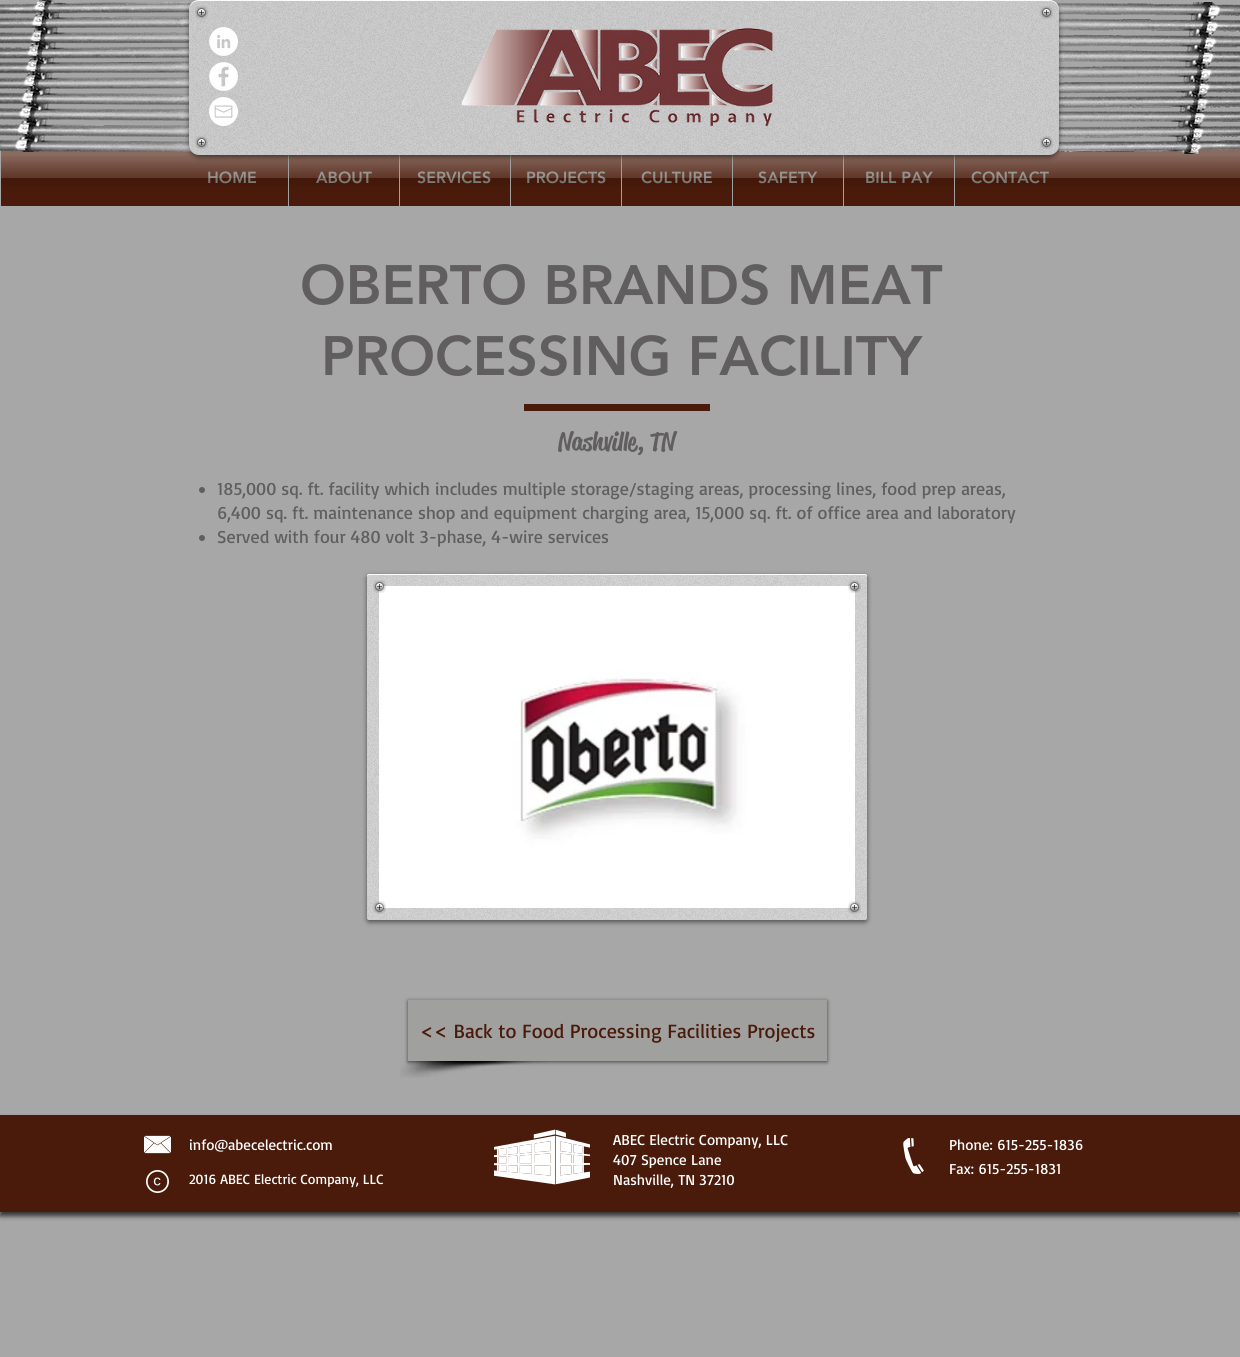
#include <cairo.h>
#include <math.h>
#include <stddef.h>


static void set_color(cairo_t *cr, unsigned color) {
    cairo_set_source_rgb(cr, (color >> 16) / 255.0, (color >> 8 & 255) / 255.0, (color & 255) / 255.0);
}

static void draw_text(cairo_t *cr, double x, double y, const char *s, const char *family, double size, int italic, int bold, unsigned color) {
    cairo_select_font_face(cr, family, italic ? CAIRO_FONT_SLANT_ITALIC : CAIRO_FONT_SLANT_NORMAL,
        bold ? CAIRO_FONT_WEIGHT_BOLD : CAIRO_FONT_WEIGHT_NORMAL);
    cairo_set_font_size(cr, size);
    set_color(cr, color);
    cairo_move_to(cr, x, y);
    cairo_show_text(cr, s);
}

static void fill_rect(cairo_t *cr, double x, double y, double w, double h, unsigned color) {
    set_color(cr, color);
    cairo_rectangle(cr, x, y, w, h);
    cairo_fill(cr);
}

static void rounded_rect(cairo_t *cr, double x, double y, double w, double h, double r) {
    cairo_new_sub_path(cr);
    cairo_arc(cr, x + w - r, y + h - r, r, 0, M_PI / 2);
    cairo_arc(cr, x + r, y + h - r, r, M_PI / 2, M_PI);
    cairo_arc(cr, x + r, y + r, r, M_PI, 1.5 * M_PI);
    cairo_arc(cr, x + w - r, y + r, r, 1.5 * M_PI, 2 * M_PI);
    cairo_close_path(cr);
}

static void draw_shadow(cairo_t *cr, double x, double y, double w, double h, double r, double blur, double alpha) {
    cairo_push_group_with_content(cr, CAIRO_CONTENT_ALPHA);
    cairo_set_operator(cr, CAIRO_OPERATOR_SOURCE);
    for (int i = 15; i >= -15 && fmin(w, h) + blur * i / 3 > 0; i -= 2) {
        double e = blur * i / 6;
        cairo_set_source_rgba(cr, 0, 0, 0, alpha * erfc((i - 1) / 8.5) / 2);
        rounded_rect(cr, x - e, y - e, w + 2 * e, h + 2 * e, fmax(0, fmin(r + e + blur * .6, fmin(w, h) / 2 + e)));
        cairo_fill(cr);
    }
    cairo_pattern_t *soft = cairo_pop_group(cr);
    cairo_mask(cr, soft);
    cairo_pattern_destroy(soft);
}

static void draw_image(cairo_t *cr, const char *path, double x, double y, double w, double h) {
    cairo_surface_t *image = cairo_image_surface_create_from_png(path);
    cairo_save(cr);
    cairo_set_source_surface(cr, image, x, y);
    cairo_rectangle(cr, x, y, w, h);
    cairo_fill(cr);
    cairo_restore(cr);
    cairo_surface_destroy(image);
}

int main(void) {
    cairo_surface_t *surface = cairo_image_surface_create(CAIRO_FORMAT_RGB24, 1240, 1357);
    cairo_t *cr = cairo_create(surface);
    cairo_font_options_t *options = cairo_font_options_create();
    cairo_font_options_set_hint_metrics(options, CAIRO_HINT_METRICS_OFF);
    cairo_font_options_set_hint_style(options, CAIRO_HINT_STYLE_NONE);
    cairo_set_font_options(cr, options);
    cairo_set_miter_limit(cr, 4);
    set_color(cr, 0xA7A7A7);
    cairo_paint(cr);
    fill_rect(cr, 1, 150, 1239, 56, 0x4A1B0B);
    draw_image(cr, "assets/img12.png", 1, 150, 1239, 37);
    fill_rect(cr, 177, 150, 111, 37, 0x4A1B0B);
    draw_text(cr, 207, 183, "HOME", "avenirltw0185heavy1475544 Black", 16, 0, 0, 0x82827E);
    draw_image(cr, "assets/img13.png", 177, 150, 111, 37);
    draw_image(cr, "assets/img1.png", 0, 0, 193, 152);
    fill_rect(cr, 955, 151, 110, 36, 0x4A1B0B);
    draw_text(cr, 971, 183, "CONTACT", "avenirltw0185heavy1475544 Black", 16, 0, 0, 0x82827E);
    draw_image(cr, "assets/img20.png", 955, 151, 110, 36);
    draw_image(cr, "assets/img11.png", 1055, 2, 185, 152);
    fill_rect(cr, 289, 155, 110, 32, 0x4A1B0B);
    fill_rect(cr, 288, 150, 1, 56, 0xA0A09F);
    draw_text(cr, 316, 183, "ABOUT", "avenirltw0185heavy1475544 Black", 16, 0, 0, 0x82827E);
    draw_image(cr, "assets/img14.png", 289, 155, 110, 32);
    fill_rect(cr, 400, 155, 110, 32, 0x4A1B0B);
    fill_rect(cr, 399, 150, 1, 56, 0xA0A09F);
    draw_text(cr, 417, 183, "SERVICES", "avenirltw0185heavy1475544 Black", 16, 0, 0, 0x82827E);
    draw_image(cr, "assets/img15.png", 400, 155, 110, 32);
    fill_rect(cr, 511, 155, 110, 32, 0x4A1B0B);
    fill_rect(cr, 510, 150, 1, 56, 0xA0A09F);
    draw_text(cr, 526, 183, "PROJECTS", "avenirltw0185heavy1475544 Black", 16, 0, 0, 0x82827E);
    draw_image(cr, "assets/img16.png", 511, 155, 110, 32);
    fill_rect(cr, 622, 155, 110, 32, 0x4A1B0B);
    fill_rect(cr, 621, 150, 1, 56, 0xA0A09F);
    draw_text(cr, 641, 183, "CULTURE", "avenirltw0185heavy1475544 Black", 16, 0, 0, 0x82827E);
    draw_image(cr, "assets/img17.png", 622, 155, 110, 32);
    fill_rect(cr, 733, 155, 110, 32, 0x4A1B0B);
    fill_rect(cr, 732, 150, 1, 56, 0xA0A09F);
    draw_text(cr, 758, 183, "SAFETY", "avenirltw0185heavy1475544 Black", 16, 0, 0, 0x82827E);
    draw_image(cr, "assets/img18.png", 733, 155, 110, 32);
    fill_rect(cr, 844, 155, 110, 32, 0x4A1B0B);
    fill_rect(cr, 843, 150, 1, 56, 0xA0A09F);
    draw_text(cr, 865, 183, "BILL PAY", "avenirltw0185heavy1475544 Black", 16, 0, 0, 0x82827E);
    draw_image(cr, "assets/img19.png", 844, 155, 110, 32);
    fill_rect(cr, 954, 150, 1, 56, 0xA0A09F);
    set_color(cr, 0x000000);
    draw_shadow(cr, 189, 2, 870, 155, 10, 2.5, 0.53);
    set_color(cr, 0xCCCCCC);
    rounded_rect(cr, 189, 0, 870, 155, 10);
    cairo_fill(cr);
    draw_image(cr, "assets/img2.png", 189, 0, 870, 155);
    cairo_set_source_rgba(cr, 1, 1, 1, 0.92);
    cairo_new_path(cr);
    cairo_move_to(cr, 199, 1);
    cairo_line_to(cr, 1049, 1);
    cairo_curve_to(cr, 1055, 1, 1059, 5, 1059, 11);
    cairo_line_to(cr, 1059, 10);
    cairo_curve_to(cr, 1059, 4, 1055, 0, 1049, 0);
    cairo_line_to(cr, 199, 0);
    cairo_curve_to(cr, 193, 0, 189, 4, 189, 10);
    cairo_line_to(cr, 189, 11);
    cairo_curve_to(cr, 189, 5, 193, 1, 199, 1);
    cairo_close_path(cr);
    cairo_fill(cr);
    draw_image(cr, "assets/img3.png", 195, 6, 13, 13);
    draw_image(cr, "assets/img4.png", 1040, 6, 13, 13);
    draw_image(cr, "assets/img5.png", 209, 27, 29, 29);
    draw_image(cr, "assets/img6.png", 209, 62, 29, 29);
    draw_image(cr, "assets/img7.png", 209, 97, 29, 29);
    draw_image(cr, "assets/img8.png", 461, 28, 312, 100);
    draw_image(cr, "assets/img9.png", 195, 136, 13, 13);
    draw_image(cr, "assets/img10.png", 1040, 136, 13, 13);
    draw_text(cr, 300, 304, "OBERTO BRANDS MEAT", "avenirltw0185heavy1475544 Black", 55, 0, 0, 0x605E5E);
    draw_text(cr, 321, 375, "PROCESSING FACILITY", "avenirltw0185heavy1475544 Black", 55, 0, 0, 0x605E5E);
    fill_rect(cr, 524, 404, 186, 7, 0x4A1B0B);
    draw_text(cr, 558, 450, "Nashville, TN", "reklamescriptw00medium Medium", 25, 0, 0, 0x605E5E);
    cairo_new_path(cr);
    cairo_arc(cr, 202, 490, 3, 0, 2 * M_PI);
    cairo_fill(cr);
    draw_text(cr, 217, 495, "185,000 sq. ft. facility which includes multiple storage/staging areas, processing lines, food prep areas,", "Basic", 18, 0, 0, 0x605E5E);
    draw_text(cr, 217, 519, "6,400 sq. ft. maintenance shop and equipment charging area, 15,000 sq. ft. of office area and laboratory", "Basic", 18, 0, 0, 0x605E5E);
    cairo_new_path(cr);
    cairo_arc(cr, 202, 538, 3, 0, 2 * M_PI);
    cairo_fill(cr);
    draw_text(cr, 217, 543, "Served with four 480 volt 3-phase, 4-wire services", "Basic", 18, 0, 0, 0x605E5E);
    cairo_save(cr);
    cairo_set_fill_rule(cr, CAIRO_FILL_RULE_EVEN_ODD);
    cairo_new_path(cr);
    cairo_move_to(cr, 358, 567);
    cairo_line_to(cr, 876, 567);
    cairo_line_to(cr, 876, 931);
    cairo_line_to(cr, 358, 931);
    cairo_close_path(cr);
    cairo_move_to(cr, 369, 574);
    cairo_line_to(cr, 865, 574);
    cairo_curve_to(cr, 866, 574, 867, 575, 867, 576);
    cairo_line_to(cr, 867, 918);
    cairo_curve_to(cr, 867, 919, 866, 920, 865, 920);
    cairo_line_to(cr, 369, 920);
    cairo_curve_to(cr, 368, 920, 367, 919, 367, 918);
    cairo_line_to(cr, 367, 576);
    cairo_curve_to(cr, 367, 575, 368, 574, 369, 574);
    cairo_close_path(cr);
    cairo_clip(cr);
    set_color(cr, 0x000000);
    draw_shadow(cr, 367, 576, 500, 346, 2, 2.5, 0.53);
    cairo_restore(cr);
    cairo_set_source_rgba(cr, 1, 1, 1, 0.5);
    rounded_rect(cr, 367, 574, 500, 346, 2);
    cairo_fill(cr);
    draw_image(cr, "assets/img21.png", 367, 574, 500, 346);
    cairo_set_source_rgba(cr, 1, 1, 1, 0.92);
    cairo_new_path(cr);
    cairo_move_to(cr, 369, 575);
    cairo_curve_to(cr, 368, 575, 367, 576, 367, 577);
    cairo_curve_to(cr, 367, 576, 367, 574, 369, 574);
    cairo_line_to(cr, 865, 574);
    cairo_line_to(cr, 867, 575);
    cairo_line_to(cr, 867, 577);
    cairo_curve_to(cr, 867, 576, 866, 575, 865, 575);
    cairo_close_path(cr);
    cairo_fill(cr);
    draw_image(cr, "assets/img24.png", 379, 586, 476, 322);
    draw_image(cr, "assets/img22.png", 373, 580, 13, 13);
    draw_image(cr, "assets/img23.png", 848, 580, 13, 13);
    draw_image(cr, "assets/img25.png", 373, 901, 13, 13);
    draw_image(cr, "assets/img26.png", 848, 901, 13, 13);
    draw_image(cr, "assets/img27.png", 400, 1061, 148, 17);
    set_color(cr, 0x000000);
    draw_shadow(cr, 408, 1001, 419, 61, 0, 2, 0.6);
    fill_rect(cr, 408, 1000, 419, 61, 0xA0A09F);
    draw_text(cr, 420, 1038, "<< Back to Food Processing Facilities Projects", "Basic", 20, 0, 0, 0x4A1B0B);
    set_color(cr, 0x000000);
    draw_shadow(cr, 0, 1119, 1240, 97, 0, 2.5, 0.7);
    fill_rect(cr, 0, 1115, 1240, 97, 0x4A1B0B);
    draw_image(cr, "assets/img28.png", 144, 1135, 27, 19);
    draw_text(cr, 189, 1150, "info@abecelectric.com", "Basic", 15, 0, 0, 0xFFFFFF);
    draw_image(cr, "assets/img29.png", 494, 1129, 96, 56);
    draw_text(cr, 613, 1145, "ABEC Electric Company, LLC", "Basic", 15, 0, 0, 0xFFFFFF);
    draw_text(cr, 613, 1165, "407 Spence Lane", "Basic", 15, 0, 0, 0xFFFFFF);
    draw_text(cr, 613, 1185, "Nashville, TN 37210", "Basic", 15, 0, 0, 0xFFFFFF);
    draw_image(cr, "assets/img30.png", 903, 1138, 21, 36);
    draw_text(cr, 949, 1150, "Phone: 615-255-1836", "Basic", 15, 0, 0, 0xFFFFFF);
    draw_text(cr, 949, 1174, "Fax: 615-255-1831", "Basic", 15, 0, 0, 0xFFFFFF);
    draw_image(cr, "assets/img31.png", 146, 1170, 23, 23);
    draw_text(cr, 189, 1184, "2016 ABEC Electric Company, LLC", "Basic", 14, 0, 0, 0xFFFFFF);
    cairo_surface_write_to_png(surface, "output.png");
    cairo_font_options_destroy(options);
    cairo_destroy(cr);
    cairo_surface_destroy(surface);
    return 0;
}
